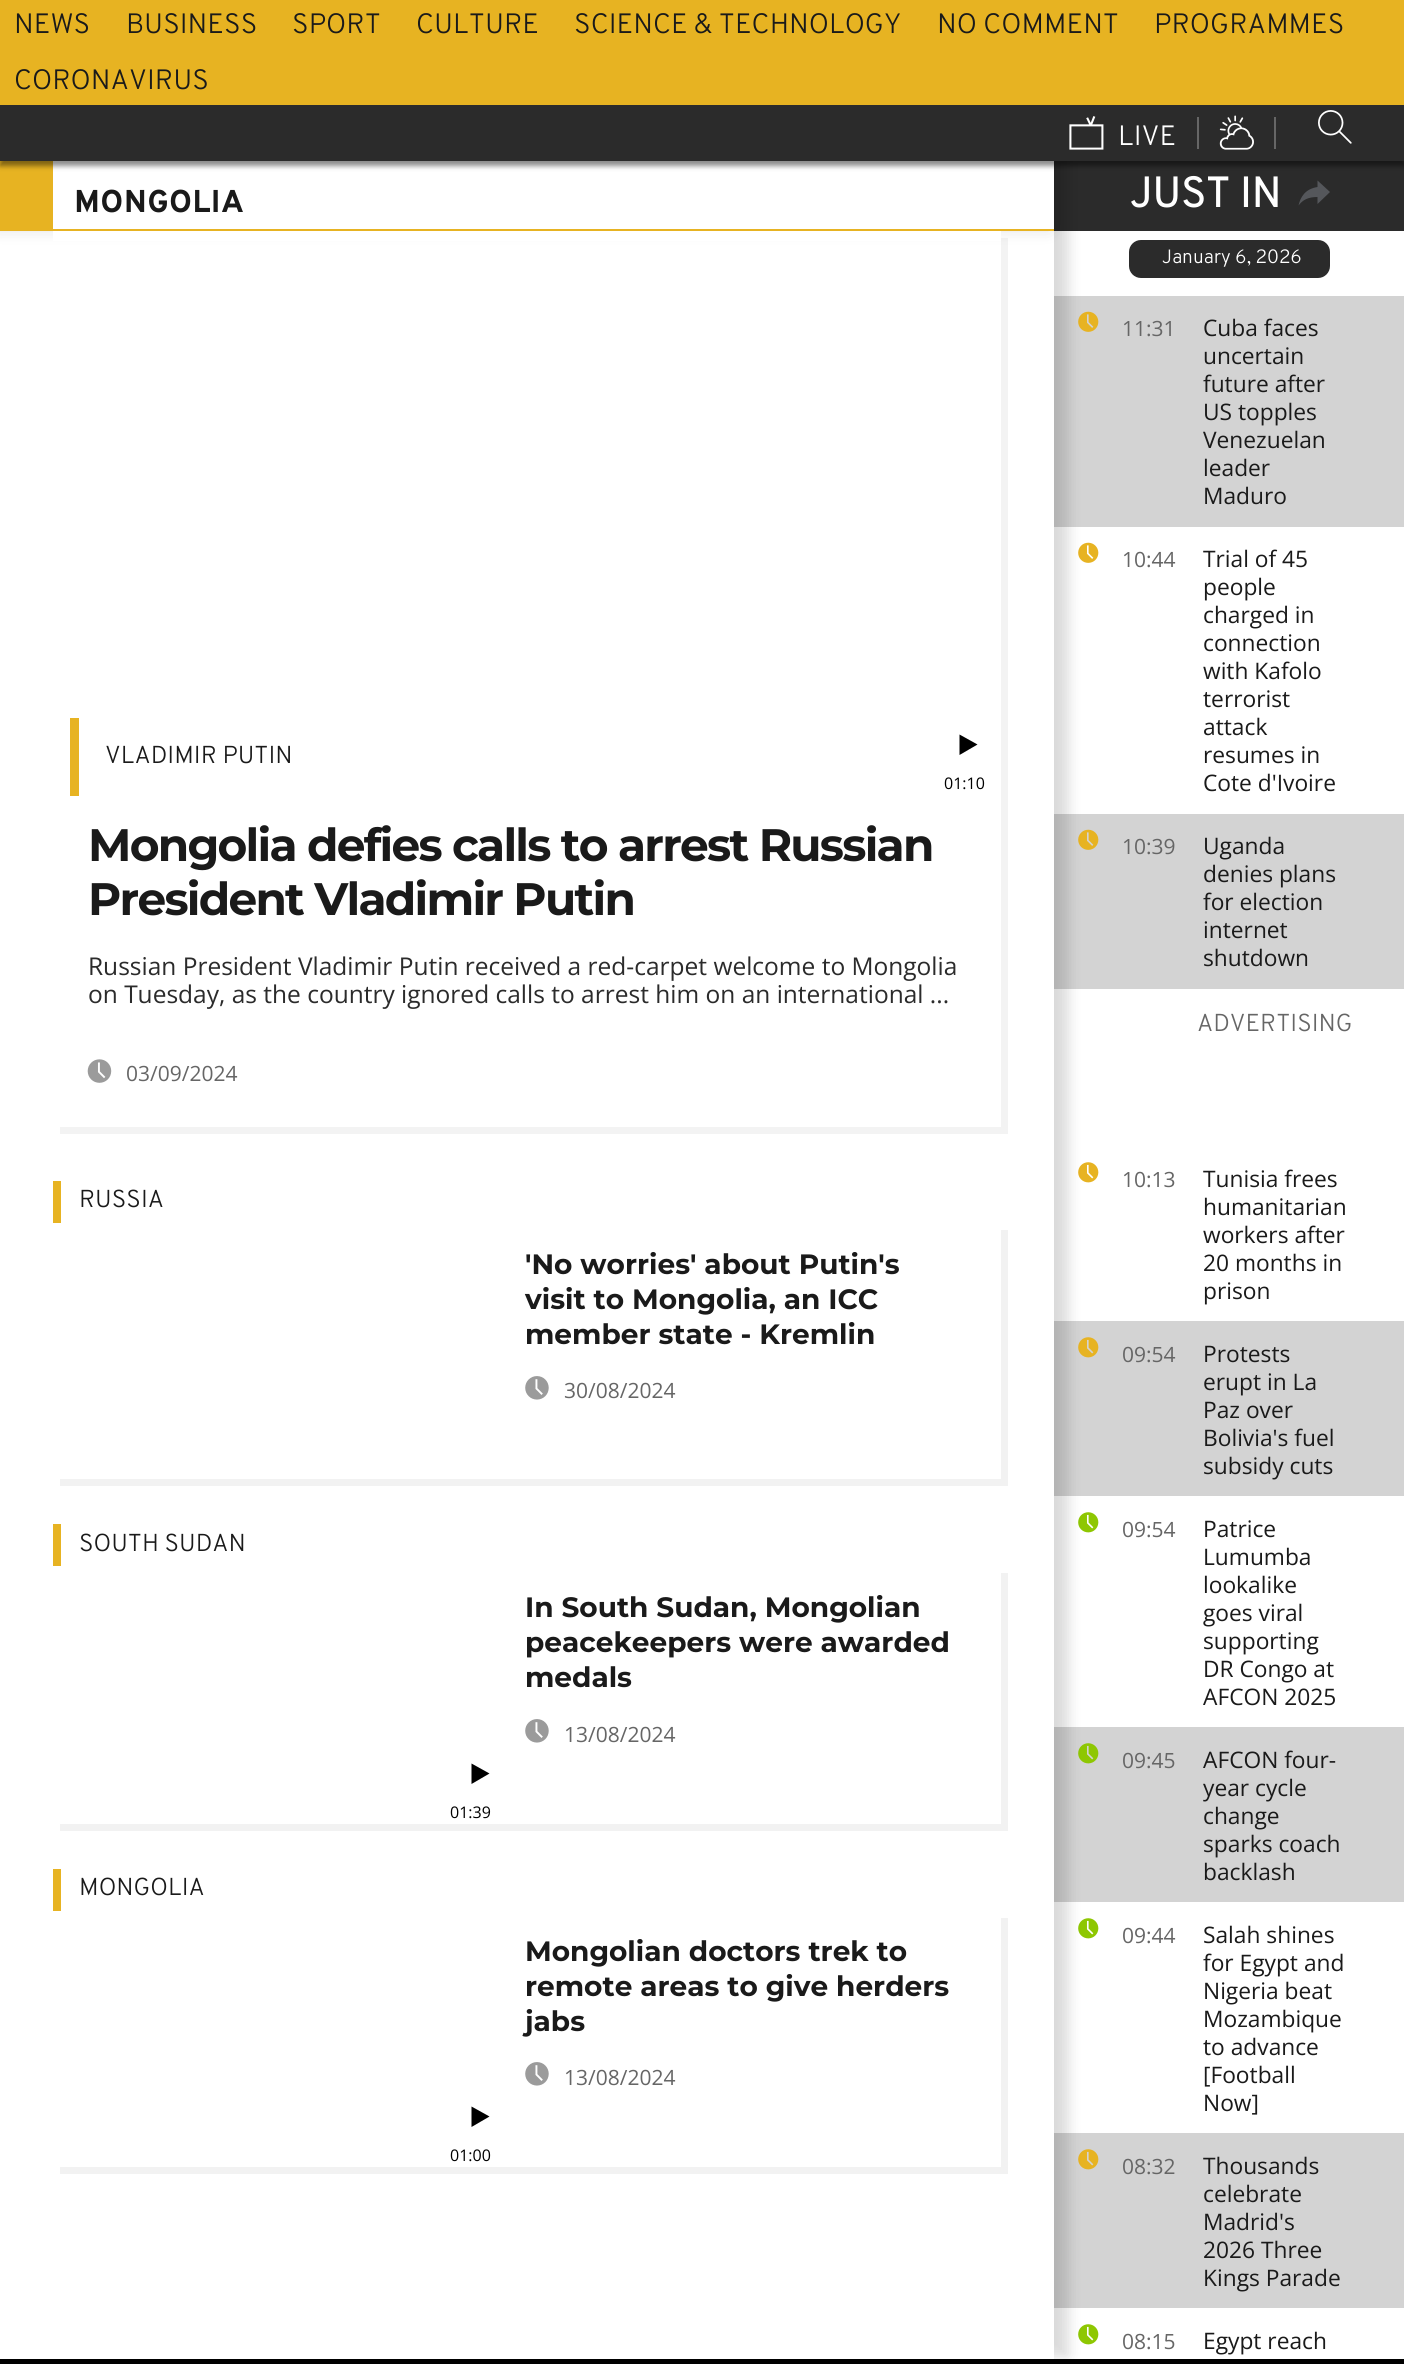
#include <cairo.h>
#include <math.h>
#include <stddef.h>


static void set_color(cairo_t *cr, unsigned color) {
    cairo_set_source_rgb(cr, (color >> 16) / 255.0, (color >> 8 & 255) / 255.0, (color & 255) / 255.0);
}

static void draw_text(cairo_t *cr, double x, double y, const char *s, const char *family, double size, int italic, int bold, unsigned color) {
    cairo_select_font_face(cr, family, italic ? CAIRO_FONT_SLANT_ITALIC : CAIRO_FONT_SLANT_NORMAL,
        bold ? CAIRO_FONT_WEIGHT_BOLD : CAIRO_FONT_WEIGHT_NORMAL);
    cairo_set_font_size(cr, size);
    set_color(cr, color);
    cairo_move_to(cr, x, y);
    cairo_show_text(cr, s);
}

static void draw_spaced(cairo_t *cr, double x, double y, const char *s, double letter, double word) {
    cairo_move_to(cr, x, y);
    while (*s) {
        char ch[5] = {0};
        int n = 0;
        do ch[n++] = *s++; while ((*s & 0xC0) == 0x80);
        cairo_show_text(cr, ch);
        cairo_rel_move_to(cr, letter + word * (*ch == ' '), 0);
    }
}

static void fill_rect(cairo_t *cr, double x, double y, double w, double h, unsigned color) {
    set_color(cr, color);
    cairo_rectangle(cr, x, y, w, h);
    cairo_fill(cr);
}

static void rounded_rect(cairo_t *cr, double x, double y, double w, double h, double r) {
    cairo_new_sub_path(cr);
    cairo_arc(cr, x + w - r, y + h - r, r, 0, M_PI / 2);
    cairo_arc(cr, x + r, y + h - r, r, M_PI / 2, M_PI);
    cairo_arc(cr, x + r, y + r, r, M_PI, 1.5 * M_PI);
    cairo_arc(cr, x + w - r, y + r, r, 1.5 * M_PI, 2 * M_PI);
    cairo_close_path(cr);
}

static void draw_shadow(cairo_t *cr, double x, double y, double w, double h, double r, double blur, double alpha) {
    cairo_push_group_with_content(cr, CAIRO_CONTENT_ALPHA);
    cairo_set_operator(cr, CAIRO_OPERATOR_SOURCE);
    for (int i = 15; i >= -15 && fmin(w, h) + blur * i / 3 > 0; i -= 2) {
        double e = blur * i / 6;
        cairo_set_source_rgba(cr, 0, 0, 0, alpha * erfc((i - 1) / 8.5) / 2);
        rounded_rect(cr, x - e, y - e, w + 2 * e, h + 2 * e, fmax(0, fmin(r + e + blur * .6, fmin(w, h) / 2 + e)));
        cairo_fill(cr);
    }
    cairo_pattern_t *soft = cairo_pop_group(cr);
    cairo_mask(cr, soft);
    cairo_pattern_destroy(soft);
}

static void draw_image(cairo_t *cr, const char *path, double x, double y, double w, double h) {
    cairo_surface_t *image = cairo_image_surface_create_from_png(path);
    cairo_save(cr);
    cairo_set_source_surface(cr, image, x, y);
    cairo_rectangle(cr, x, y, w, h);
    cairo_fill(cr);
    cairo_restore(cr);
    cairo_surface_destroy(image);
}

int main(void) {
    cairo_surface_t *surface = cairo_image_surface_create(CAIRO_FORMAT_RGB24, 1404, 2364);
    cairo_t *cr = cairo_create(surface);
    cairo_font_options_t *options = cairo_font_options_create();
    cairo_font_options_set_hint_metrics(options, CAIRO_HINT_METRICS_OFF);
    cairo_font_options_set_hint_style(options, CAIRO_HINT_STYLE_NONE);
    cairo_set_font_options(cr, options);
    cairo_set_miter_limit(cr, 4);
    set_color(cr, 0xFFFFFF);
    cairo_paint(cr);
    fill_rect(cr, 1054, 161, 350, 70, 0x2B2B2B);
    fill_rect(cr, 1054, 296, 350, 231, 0xD3D3D3);
    draw_image(cr, "assets/img6.png", 1078, 311, 21, 21);
    draw_image(cr, "assets/img7.png", 1078, 542, 21, 21);
    fill_rect(cr, 1054, 814, 350, 175, 0xD3D3D3);
    draw_image(cr, "assets/img6.png", 1078, 829, 21, 21);
    draw_image(cr, "assets/img8.png", 1078, 1162, 21, 21);
    fill_rect(cr, 1054, 1321, 350, 175, 0xD3D3D3);
    draw_image(cr, "assets/img9.png", 1078, 1337, 21, 21);
    draw_image(cr, "assets/img10.png", 1078, 1512, 21, 21);
    fill_rect(cr, 1054, 1727, 350, 175, 0xD3D3D3);
    draw_image(cr, "assets/img11.png", 1078, 1743, 21, 21);
    draw_image(cr, "assets/img10.png", 1078, 1918, 21, 21);
    fill_rect(cr, 1054, 2133, 350, 175, 0xD3D3D3);
    draw_image(cr, "assets/img9.png", 1078, 2149, 21, 21);
    draw_image(cr, "assets/img10.png", 1078, 2324, 21, 21);
    cairo_save(cr);
    cairo_set_fill_rule(cr, CAIRO_FILL_RULE_EVEN_ODD);
    cairo_new_path(cr);
    cairo_move_to(cr, 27, 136);
    cairo_line_to(cr, 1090, 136);
    cairo_line_to(cr, 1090, 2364);
    cairo_line_to(cr, 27, 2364);
    cairo_close_path(cr);
    cairo_move_to(cr, 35, 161);
    cairo_line_to(cr, 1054, 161);
    cairo_line_to(cr, 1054, 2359);
    cairo_line_to(cr, 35, 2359);
    cairo_close_path(cr);
    cairo_clip(cr);
    set_color(cr, 0x000000);
    draw_shadow(cr, 49, 158, 1019, 2198, 0, 7, 0.15);
    cairo_restore(cr);
    fill_rect(cr, 1053, 231, 1, 2058, 0xFFFFFF);
    set_color(cr, 0x000000);
    draw_shadow(cr, -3, 158, 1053, 70, 0, 9, 0.15);
    fill_rect(cr, 53, 161, 1001, 68, 0xFFFFFF);
    fill_rect(cr, 0, 161, 53, 68, 0xE7B322);
    set_color(cr, 0x000000);
    draw_shadow(cr, 0, -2, 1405, 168, 0, 2.5, 0.45);
    fill_rect(cr, 0, 0, 1404, 105, 0xE7B322);
    draw_text(cr, 14, 33, "NEWS", "Overpass Light", 28, 0, 0, 0x1A1A1A);
    draw_text(cr, 126, 33, "BUSINESS", "Overpass Light", 28, 0, 0, 0x1A1A1A);
    draw_text(cr, 292, 33, "SPORT", "Overpass Light", 28, 0, 0, 0x1A1A1A);
    draw_text(cr, 416, 33, "CULTURE", "Overpass Light", 28, 0, 0, 0x1A1A1A);
    draw_text(cr, 574, 33, "SCIENCE & TECHNOLOGY", "Overpass Light", 28, 0, 0, 0x1A1A1A);
    draw_text(cr, 937, 33, "NO COMMENT", "Overpass Light", 28, 0, 0, 0x1A1A1A);
    draw_text(cr, 1154, 33, "PROGRAMMES", "Overpass Light", 28, 0, 0, 0x1A1A1A);
    draw_text(cr, 14, 89, "CORONAVIRUS", "Overpass Light", 28, 0, 0, 0x1A1A1A);
    fill_rect(cr, 0, 105, 1404, 56, 0x2B2B2B);
    draw_image(cr, "assets/img1.png", 1069, 116, 35, 34);
    draw_text(cr, 1118, 145, "LIVE", "Overpass Light", 28, 0, 0, 0xFFFFFF);
    fill_rect(cr, 1197, 117, 2, 32, 0x666666);
    draw_image(cr, "assets/img2.png", 1219, 115, 35, 35);
    fill_rect(cr, 1274, 117, 2, 32, 0x666666);
    draw_image(cr, "assets/img3.png", 1318, 110, 34, 34);
    fill_rect(cr, 0, 229, 1054, 2, 0xE7B322);
    draw_text(cr, 74, 212, "MONGOLIA", "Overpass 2", 31.5, 0, 1, 0x1A1A1A);
    cairo_set_source_rgba(cr, 0, 0, 0, 0.05);
    cairo_new_path(cr);
    cairo_move_to(cr, 60, 1127);
    cairo_line_to(cr, 60, 1134);
    cairo_line_to(cr, 1008, 1134);
    cairo_line_to(cr, 1008, 238);
    cairo_line_to(cr, 1001, 238);
    cairo_line_to(cr, 1001, 1127);
    cairo_close_path(cr);
    cairo_fill(cr);
    fill_rect(cr, 53, 231, 948, 10, 0xFFFFFF);
    fill_rect(cr, 70, 718, 9, 78, 0xE7B322);
    draw_text(cr, 105, 763, "VLADIMIR PUTIN", "Overpass Light", 24.5, 0, 0, 0x1A1A1A);
    cairo_select_font_face(cr, "Montserrat Thin", CAIRO_FONT_SLANT_NORMAL, CAIRO_FONT_WEIGHT_NORMAL);
    cairo_set_font_size(cr, 45.5);
    draw_spaced(cr, 88, 861, "Mongolia defies calls to arrest Russian", -1.75, 0);
    draw_spaced(cr, 88, 915, "President Vladimir Putin", -1.75, 0);
    draw_text(cr, 88, 975, "Russian President Vladimir Putin received a red-carpet welcome to Mongolia", "Open Sans", 24.5, 0, 0, 0x2B2B2B);
    draw_text(cr, 88, 1003, "on Tuesday, as the country ignored calls to arrest him on an international ...", "Open Sans", 24.5, 0, 0, 0x2B2B2B);
    draw_image(cr, "assets/img4.png", 87, 1059, 25, 24);
    draw_text(cr, 126, 1081, "03/09/2024", "Open Sans", 21, 0, 0, 0x666666);
    set_color(cr, 0x000000);
    cairo_new_path(cr);
    cairo_move_to(cr, 977.5, 744.5);
    cairo_line_to(cr, 959.5, 755);
    cairo_line_to(cr, 959.5, 734.5);
    cairo_close_path(cr);
    cairo_fill(cr);
    draw_text(cr, 944, 789, "01:10", "Open Sans", 16, 0, 0, 0x000000);
    set_color(cr, 0xF2F2F2);
    cairo_new_path(cr);
    cairo_move_to(cr, 60, 1479);
    cairo_line_to(cr, 60, 1486);
    cairo_line_to(cr, 1008, 1486);
    cairo_line_to(cr, 1008, 1230);
    cairo_line_to(cr, 1001, 1230);
    cairo_line_to(cr, 1001, 1479);
    cairo_close_path(cr);
    cairo_fill(cr);
    fill_rect(cr, 53, 1181, 8, 42, 0xE7B322);
    draw_text(cr, 79, 1207, "RUSSIA", "Overpass Light", 24.5, 0, 0, 0x1A1A1A);
    draw_text(cr, 525, 1274, "'No worries' about Putin's", "Montserrat Thin", 28, 0, 0, 0x1A1A1A);
    draw_text(cr, 525, 1309, "visit to Mongolia, an ICC", "Montserrat Thin", 28, 0, 0, 0x1A1A1A);
    draw_text(cr, 525, 1344, "member state - Kremlin", "Montserrat Thin", 28, 0, 0, 0x1A1A1A);
    draw_image(cr, "assets/img5.png", 525, 1376, 24, 24);
    draw_text(cr, 564, 1398, "30/08/2024", "Open Sans", 21, 0, 0, 0x666666);
    set_color(cr, 0xF2F2F2);
    cairo_new_path(cr);
    cairo_move_to(cr, 60, 1824);
    cairo_line_to(cr, 60, 1831);
    cairo_line_to(cr, 1008, 1831);
    cairo_line_to(cr, 1008, 1573);
    cairo_line_to(cr, 1001, 1573);
    cairo_line_to(cr, 1001, 1824);
    cairo_close_path(cr);
    cairo_fill(cr);
    fill_rect(cr, 53, 1524, 8, 42, 0xE7B322);
    draw_text(cr, 79, 1551, "SOUTH SUDAN", "Overpass Light", 24.5, 0, 0, 0x1A1A1A);
    draw_text(cr, 525, 1617, "In South Sudan, Mongolian", "Montserrat Thin", 28, 0, 0, 0x1A1A1A);
    draw_text(cr, 525, 1652, "peacekeepers were awarded", "Montserrat Thin", 28, 0, 0, 0x1A1A1A);
    draw_text(cr, 525, 1687, "medals", "Montserrat Thin", 28, 0, 0, 0x1A1A1A);
    draw_image(cr, "assets/img5.png", 525, 1719, 24, 24);
    draw_text(cr, 564, 1742, "13/08/2024", "Open Sans", 21, 0, 0, 0x666666);
    set_color(cr, 0x000000);
    cairo_new_path(cr);
    cairo_move_to(cr, 489.5, 1773.5);
    cairo_line_to(cr, 471.5, 1784);
    cairo_line_to(cr, 471.5, 1763.5);
    cairo_close_path(cr);
    cairo_fill(cr);
    draw_text(cr, 450, 1818, "01:39", "Open Sans", 16, 0, 0, 0x000000);
    set_color(cr, 0xF2F2F2);
    cairo_new_path(cr);
    cairo_move_to(cr, 60, 2166);
    cairo_line_to(cr, 60, 2174);
    cairo_line_to(cr, 1008, 2174);
    cairo_line_to(cr, 1008, 1918);
    cairo_line_to(cr, 1001, 1918);
    cairo_line_to(cr, 1001, 2166);
    cairo_close_path(cr);
    cairo_fill(cr);
    fill_rect(cr, 60, 2166, 941, 1, 0xFFFFFF);
    fill_rect(cr, 53, 1869, 8, 42, 0xE7B322);
    draw_text(cr, 79, 1895, "MONGOLIA", "Overpass Light", 24.5, 0, 0, 0x1A1A1A);
    draw_text(cr, 525, 1961, "Mongolian doctors trek to", "Montserrat Thin", 28, 0, 0, 0x1A1A1A);
    draw_text(cr, 525, 1996, "remote areas to give herders", "Montserrat Thin", 28, 0, 0, 0x1A1A1A);
    draw_text(cr, 525, 2031, "jabs", "Montserrat Thin", 28, 0, 0, 0x1A1A1A);
    draw_image(cr, "assets/img5.png", 525, 2062, 24, 24);
    draw_text(cr, 564, 2085, "13/08/2024", "Open Sans", 21, 0, 0, 0x666666);
    set_color(cr, 0x000000);
    cairo_new_path(cr);
    cairo_move_to(cr, 489.5, 2116.5);
    cairo_line_to(cr, 471.5, 2127);
    cairo_line_to(cr, 471.5, 2106.5);
    cairo_close_path(cr);
    cairo_fill(cr);
    draw_text(cr, 450, 2161, "01:00", "Open Sans", 16, 0, 0, 0x000000);
    draw_text(cr, 1130, 207, "JUST IN", "Overpass", 42, 0, 1, 0xFFFFFF);
    set_color(cr, 0x55575B);
    cairo_new_path(cr);
    cairo_move_to(cr, 1330, 192);
    cairo_line_to(cr, 1317.5, 204);
    cairo_line_to(cr, 1317.5, 197);
    cairo_curve_to(cr, 1308.5, 197, 1303, 199.5, 1298.5, 205.5);
    cairo_curve_to(cr, 1300.5, 197, 1305, 189, 1317.5, 187);
    cairo_line_to(cr, 1317.5, 180.5);
    cairo_close_path(cr);
    cairo_fill(cr);
    set_color(cr, 0x2B2B2B);
    rounded_rect(cr, 1129, 240, 201, 38, 12);
    cairo_fill(cr);
    draw_text(cr, 1162, 263, "January 6, 2026", "Overpass Light", 19.25, 0, 0, 0xFFFFFF);
    draw_text(cr, 1122, 336, "11:31", "Open Sans", 21, 0, 0, 0x666666);
    draw_text(cr, 1203, 336, "Cuba faces", "Open Sans", 22.75, 0, 0, 0x1A1A1A);
    draw_text(cr, 1203, 364, "uncertain", "Open Sans", 22.75, 0, 0, 0x1A1A1A);
    draw_text(cr, 1203, 392, "future after", "Open Sans", 22.75, 0, 0, 0x1A1A1A);
    draw_text(cr, 1203, 420, "US topples", "Open Sans", 22.75, 0, 0, 0x1A1A1A);
    draw_text(cr, 1203, 448, "Venezuelan", "Open Sans", 22.75, 0, 0, 0x1A1A1A);
    draw_text(cr, 1203, 476, "leader", "Open Sans", 22.75, 0, 0, 0x1A1A1A);
    draw_text(cr, 1203, 504, "Maduro", "Open Sans", 22.75, 0, 0, 0x1A1A1A);
    draw_text(cr, 1122, 567, "10:44", "Open Sans", 21, 0, 0, 0x666666);
    draw_text(cr, 1203, 567, "Trial of 45", "Open Sans", 22.75, 0, 0, 0x1A1A1A);
    draw_text(cr, 1203, 595, "people", "Open Sans", 22.75, 0, 0, 0x1A1A1A);
    draw_text(cr, 1203, 623, "charged in", "Open Sans", 22.75, 0, 0, 0x1A1A1A);
    draw_text(cr, 1203, 651, "connection", "Open Sans", 22.75, 0, 0, 0x1A1A1A);
    draw_text(cr, 1203, 679, "with Kafolo", "Open Sans", 22.75, 0, 0, 0x1A1A1A);
    draw_text(cr, 1203, 707, "terrorist", "Open Sans", 22.75, 0, 0, 0x1A1A1A);
    draw_text(cr, 1203, 735, "attack", "Open Sans", 22.75, 0, 0, 0x1A1A1A);
    draw_text(cr, 1203, 763, "resumes in", "Open Sans", 22.75, 0, 0, 0x1A1A1A);
    draw_text(cr, 1203, 791, "Cote d'Ivoire", "Open Sans", 22.75, 0, 0, 0x1A1A1A);
    draw_text(cr, 1122, 854, "10:39", "Open Sans", 21, 0, 0, 0x666666);
    draw_text(cr, 1203, 854, "Uganda", "Open Sans", 22.75, 0, 0, 0x1A1A1A);
    draw_text(cr, 1203, 882, "denies plans", "Open Sans", 22.75, 0, 0, 0x1A1A1A);
    draw_text(cr, 1203, 910, "for election", "Open Sans", 22.75, 0, 0, 0x1A1A1A);
    draw_text(cr, 1203, 938, "internet", "Open Sans", 22.75, 0, 0, 0x1A1A1A);
    draw_text(cr, 1203, 966, "shutdown", "Open Sans", 22.75, 0, 0, 0x1A1A1A);
    draw_text(cr, 1197, 1031, "ADVERTISING", "Overpass Light", 24.5, 0, 0, 0x666666);
    draw_text(cr, 1122, 1187, "10:13", "Open Sans", 21, 0, 0, 0x666666);
    draw_text(cr, 1203, 1187, "Tunisia frees", "Open Sans", 22.75, 0, 0, 0x1A1A1A);
    draw_text(cr, 1203, 1215, "humanitarian", "Open Sans", 22.75, 0, 0, 0x1A1A1A);
    draw_text(cr, 1203, 1243, "workers after", "Open Sans", 22.75, 0, 0, 0x1A1A1A);
    draw_text(cr, 1203, 1271, "20 months in", "Open Sans", 22.75, 0, 0, 0x1A1A1A);
    draw_text(cr, 1203, 1299, "prison", "Open Sans", 22.75, 0, 0, 0x1A1A1A);
    draw_text(cr, 1122, 1362, "09:54", "Open Sans", 21, 0, 0, 0x666666);
    draw_text(cr, 1203, 1362, "Protests", "Open Sans", 22.75, 0, 0, 0x1A1A1A);
    draw_text(cr, 1203, 1390, "erupt in La", "Open Sans", 22.75, 0, 0, 0x1A1A1A);
    draw_text(cr, 1203, 1418, "Paz over", "Open Sans", 22.75, 0, 0, 0x1A1A1A);
    draw_text(cr, 1203, 1446, "Bolivia's fuel", "Open Sans", 22.75, 0, 0, 0x1A1A1A);
    draw_text(cr, 1203, 1474, "subsidy cuts", "Open Sans", 22.75, 0, 0, 0x1A1A1A);
    draw_text(cr, 1122, 1537, "09:54", "Open Sans", 21, 0, 0, 0x666666);
    draw_text(cr, 1203, 1537, "Patrice", "Open Sans", 22.75, 0, 0, 0x1A1A1A);
    draw_text(cr, 1203, 1565, "Lumumba", "Open Sans", 22.75, 0, 0, 0x1A1A1A);
    draw_text(cr, 1203, 1593, "lookalike", "Open Sans", 22.75, 0, 0, 0x1A1A1A);
    draw_text(cr, 1203, 1621, "goes viral", "Open Sans", 22.75, 0, 0, 0x1A1A1A);
    draw_text(cr, 1203, 1649, "supporting", "Open Sans", 22.75, 0, 0, 0x1A1A1A);
    draw_text(cr, 1203, 1677, "DR Congo at", "Open Sans", 22.75, 0, 0, 0x1A1A1A);
    draw_text(cr, 1203, 1705, "AFCON 2025", "Open Sans", 22.75, 0, 0, 0x1A1A1A);
    draw_text(cr, 1122, 1768, "09:45", "Open Sans", 21, 0, 0, 0x666666);
    draw_text(cr, 1203, 1768, "AFCON four-", "Open Sans", 22.75, 0, 0, 0x1A1A1A);
    draw_text(cr, 1203, 1796, "year cycle", "Open Sans", 22.75, 0, 0, 0x1A1A1A);
    draw_text(cr, 1203, 1824, "change", "Open Sans", 22.75, 0, 0, 0x1A1A1A);
    draw_text(cr, 1203, 1852, "sparks coach", "Open Sans", 22.75, 0, 0, 0x1A1A1A);
    draw_text(cr, 1203, 1880, "backlash", "Open Sans", 22.75, 0, 0, 0x1A1A1A);
    draw_text(cr, 1122, 1943, "09:44", "Open Sans", 21, 0, 0, 0x666666);
    draw_text(cr, 1203, 1943, "Salah shines", "Open Sans", 22.75, 0, 0, 0x1A1A1A);
    draw_text(cr, 1203, 1971, "for Egypt and", "Open Sans", 22.75, 0, 0, 0x1A1A1A);
    draw_text(cr, 1203, 1999, "Nigeria beat", "Open Sans", 22.75, 0, 0, 0x1A1A1A);
    draw_text(cr, 1203, 2027, "Mozambique", "Open Sans", 22.75, 0, 0, 0x1A1A1A);
    draw_text(cr, 1203, 2055, "to advance", "Open Sans", 22.75, 0, 0, 0x1A1A1A);
    draw_text(cr, 1203, 2083, "[Football", "Open Sans", 22.75, 0, 0, 0x1A1A1A);
    draw_text(cr, 1203, 2111, "Now]", "Open Sans", 22.75, 0, 0, 0x1A1A1A);
    draw_text(cr, 1122, 2174, "08:32", "Open Sans", 21, 0, 0, 0x666666);
    draw_text(cr, 1203, 2174, "Thousands", "Open Sans", 22.75, 0, 0, 0x1A1A1A);
    draw_text(cr, 1203, 2202, "celebrate", "Open Sans", 22.75, 0, 0, 0x1A1A1A);
    draw_text(cr, 1203, 2230, "Madrid's", "Open Sans", 22.75, 0, 0, 0x1A1A1A);
    draw_text(cr, 1203, 2258, "2026 Three", "Open Sans", 22.75, 0, 0, 0x1A1A1A);
    draw_text(cr, 1203, 2286, "Kings Parade", "Open Sans", 22.75, 0, 0, 0x1A1A1A);
    draw_text(cr, 1122, 2349, "08:15", "Open Sans", 21, 0, 0, 0x666666);
    draw_text(cr, 1203, 2349, "Egypt reach", "Open Sans", 22.75, 0, 0, 0x1A1A1A);
    fill_rect(cr, 0, 2359, 1404, 5, 0x000000);
    cairo_surface_write_to_png(surface, "output.png");
    cairo_font_options_destroy(options);
    cairo_destroy(cr);
    cairo_surface_destroy(surface);
    return 0;
}
